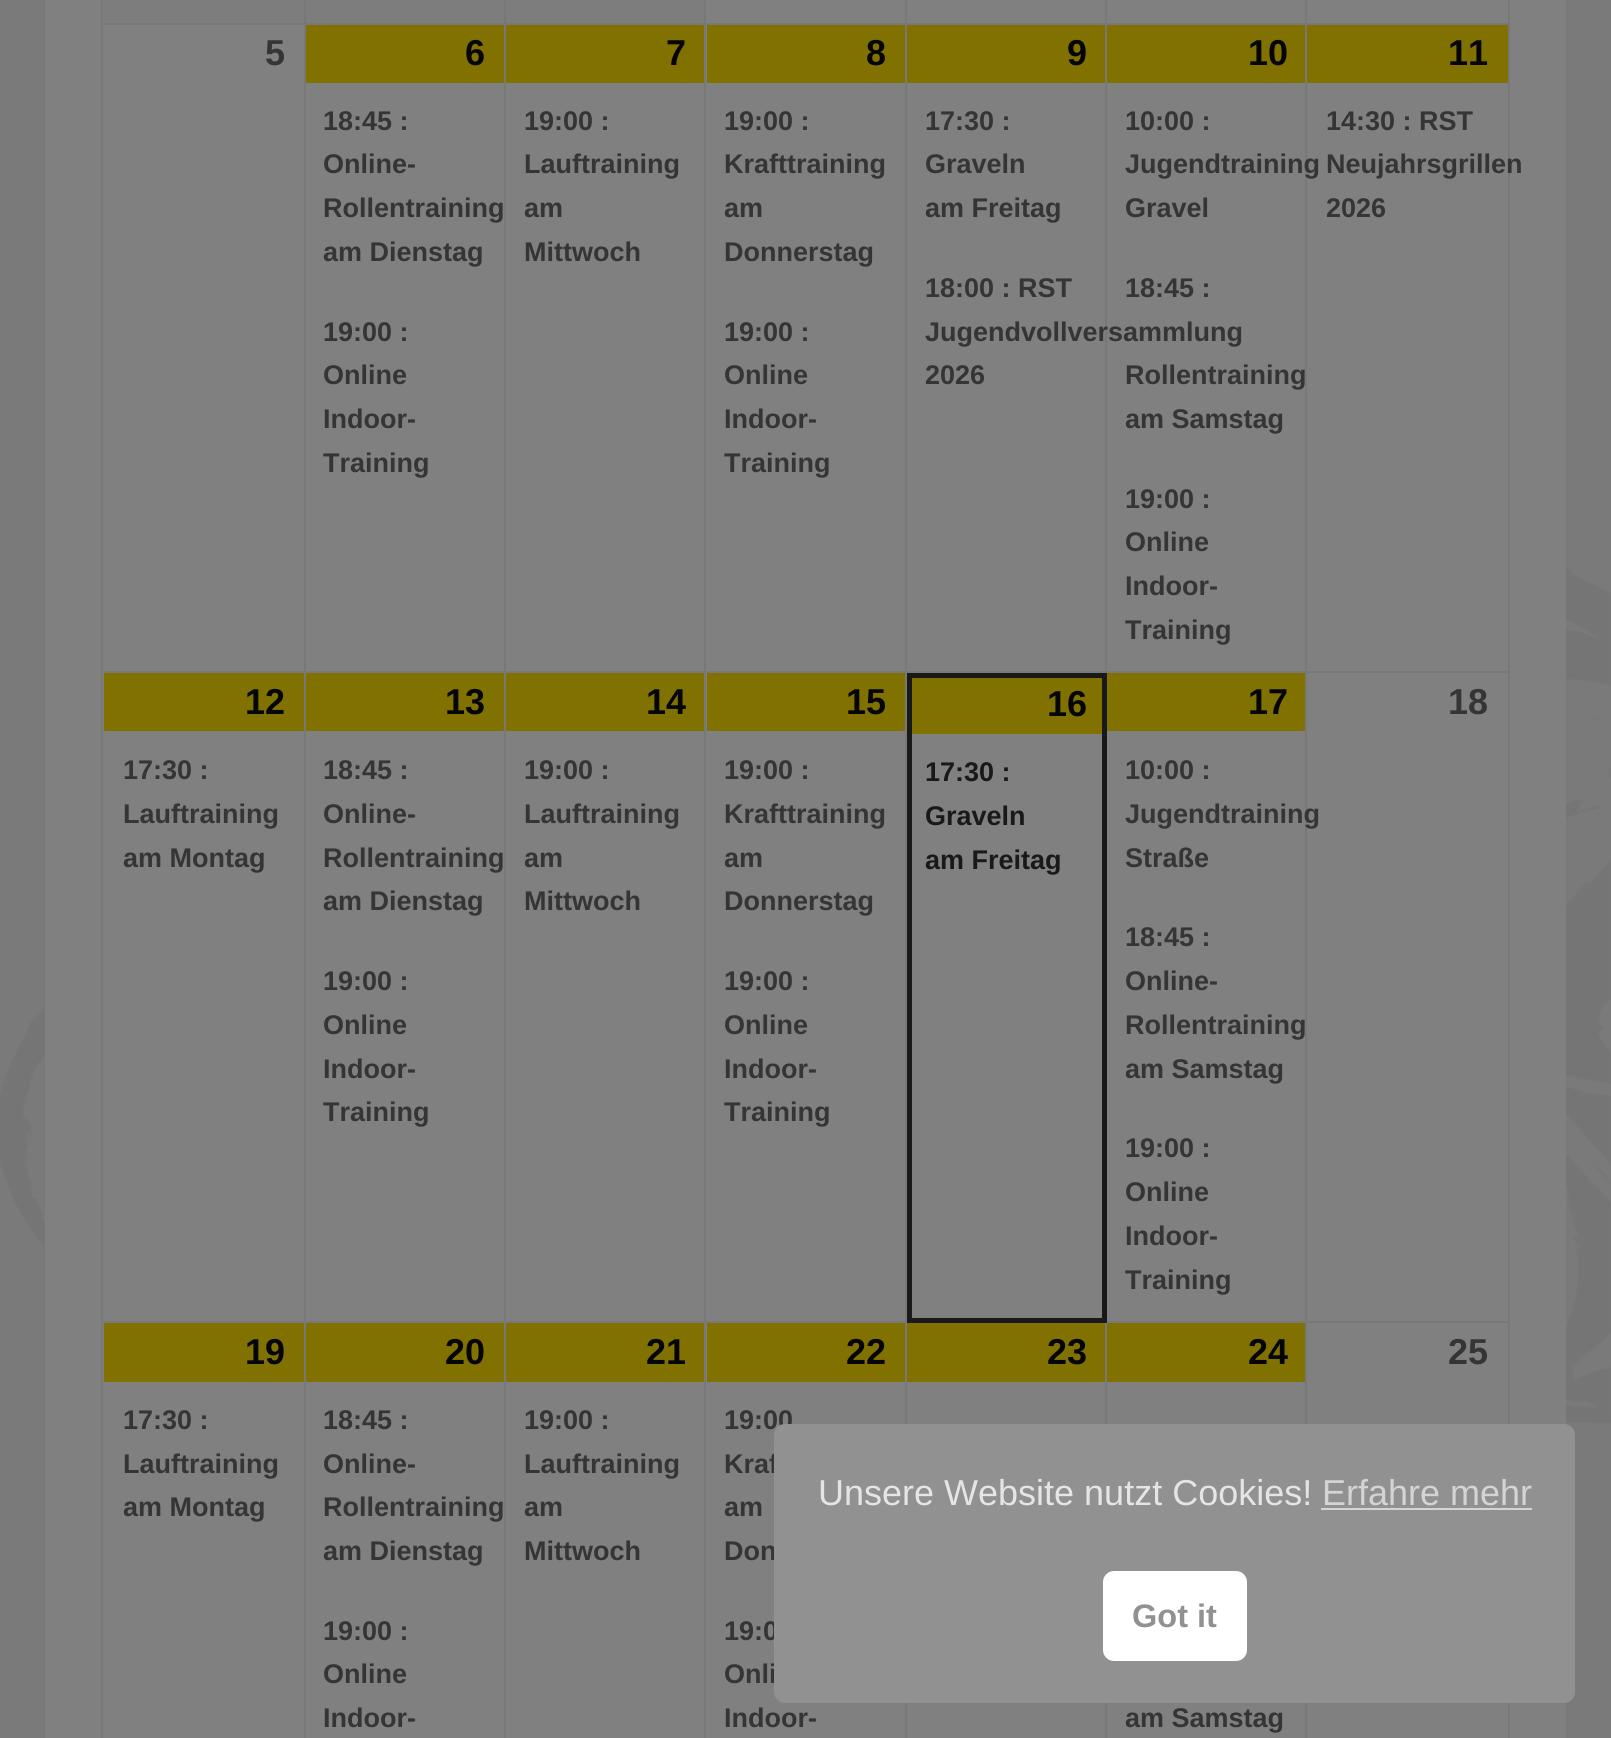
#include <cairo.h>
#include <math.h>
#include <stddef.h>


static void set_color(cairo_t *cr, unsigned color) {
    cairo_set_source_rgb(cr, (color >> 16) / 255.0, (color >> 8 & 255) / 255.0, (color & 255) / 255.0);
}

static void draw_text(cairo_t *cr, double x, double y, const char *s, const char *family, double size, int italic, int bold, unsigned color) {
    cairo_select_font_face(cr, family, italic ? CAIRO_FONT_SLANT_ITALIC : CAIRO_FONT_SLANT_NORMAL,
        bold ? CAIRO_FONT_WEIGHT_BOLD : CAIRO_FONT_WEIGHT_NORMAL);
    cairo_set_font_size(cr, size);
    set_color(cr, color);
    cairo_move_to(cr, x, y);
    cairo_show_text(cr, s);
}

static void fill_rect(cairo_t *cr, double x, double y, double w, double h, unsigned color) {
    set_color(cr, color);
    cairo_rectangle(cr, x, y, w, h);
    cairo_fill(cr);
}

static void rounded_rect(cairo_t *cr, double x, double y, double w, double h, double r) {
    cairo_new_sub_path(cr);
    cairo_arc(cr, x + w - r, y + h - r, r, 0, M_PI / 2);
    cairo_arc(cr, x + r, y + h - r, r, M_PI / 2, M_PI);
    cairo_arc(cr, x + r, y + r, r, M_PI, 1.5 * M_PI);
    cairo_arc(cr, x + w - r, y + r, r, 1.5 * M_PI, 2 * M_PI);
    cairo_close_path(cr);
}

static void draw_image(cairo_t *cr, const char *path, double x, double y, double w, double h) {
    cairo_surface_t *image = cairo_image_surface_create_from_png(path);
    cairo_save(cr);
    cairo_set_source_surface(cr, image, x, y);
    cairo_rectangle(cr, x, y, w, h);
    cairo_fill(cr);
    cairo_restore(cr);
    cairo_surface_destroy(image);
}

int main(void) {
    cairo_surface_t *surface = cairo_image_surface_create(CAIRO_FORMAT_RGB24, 1611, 1738);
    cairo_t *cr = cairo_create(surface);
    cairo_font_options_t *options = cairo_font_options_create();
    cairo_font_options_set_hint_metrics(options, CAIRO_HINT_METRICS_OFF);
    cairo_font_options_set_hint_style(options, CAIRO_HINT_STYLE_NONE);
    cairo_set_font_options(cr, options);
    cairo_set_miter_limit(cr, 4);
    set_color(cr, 0x7A7A7A);
    cairo_paint(cr);
    draw_image(cr, "assets/img1.png", 0, 518, 1611, 1033);
    fill_rect(cr, 45, 0, 1521, 1738, 0x808080);
    fill_rect(cr, 104, 0, 200, 23, 0x7D7D7D);
    fill_rect(cr, 306, 0, 198, 23, 0x7D7D7D);
    fill_rect(cr, 1305, 23, 205, 2, 0x787878);
    fill_rect(cr, 1305, 671, 205, 2, 0x787878);
    fill_rect(cr, 1305, 1321, 205, 2, 0x787878);
    fill_rect(cr, 1305, 1321, 2, 417, 0x787878);
    fill_rect(cr, 1105, 1321, 202, 2, 0x787878);
    fill_rect(cr, 1305, 671, 2, 652, 0x787878);
    fill_rect(cr, 1105, 671, 202, 2, 0x787878);
    fill_rect(cr, 1305, 23, 2, 650, 0x787878);
    fill_rect(cr, 1105, 23, 202, 2, 0x787878);
    fill_rect(cr, 1105, 23, 2, 650, 0x787878);
    fill_rect(cr, 905, 23, 202, 2, 0x787878);
    fill_rect(cr, 905, 1321, 2, 417, 0x787878);
    fill_rect(cr, 704, 1321, 203, 2, 0x787878);
    fill_rect(cr, 905, 671, 2, 652, 0x787878);
    fill_rect(cr, 704, 671, 203, 2, 0x787878);
    fill_rect(cr, 905, 671, 202, 2, 0x787878);
    fill_rect(cr, 905, 23, 2, 650, 0x787878);
    fill_rect(cr, 704, 23, 203, 2, 0x787878);
    fill_rect(cr, 704, 1321, 2, 417, 0x787878);
    fill_rect(cr, 504, 1321, 203, 2, 0x787878);
    fill_rect(cr, 704, 671, 2, 652, 0x787878);
    fill_rect(cr, 504, 671, 203, 2, 0x787878);
    fill_rect(cr, 704, 23, 2, 650, 0x787878);
    fill_rect(cr, 504, 23, 203, 2, 0x787878);
    fill_rect(cr, 504, 1321, 2, 417, 0x787878);
    fill_rect(cr, 304, 1321, 202, 2, 0x787878);
    fill_rect(cr, 504, 671, 2, 652, 0x787878);
    fill_rect(cr, 304, 671, 202, 2, 0x787878);
    fill_rect(cr, 504, 23, 2, 650, 0x787878);
    fill_rect(cr, 304, 23, 202, 2, 0x787878);
    fill_rect(cr, 304, 1321, 2, 417, 0x787878);
    fill_rect(cr, 101, 1321, 205, 2, 0x787878);
    fill_rect(cr, 304, 671, 2, 652, 0x787878);
    fill_rect(cr, 101, 671, 205, 2, 0x787878);
    fill_rect(cr, 304, 23, 2, 650, 0x787878);
    fill_rect(cr, 101, 23, 205, 2, 0x787878);
    fill_rect(cr, 304, 0, 2, 25, 0x787878);
    fill_rect(cr, 506, 0, 198, 23, 0x7D7D7D);
    fill_rect(cr, 504, 0, 2, 25, 0x787878);
    fill_rect(cr, 704, 0, 2, 25, 0x787878);
    fill_rect(cr, 905, 0, 2, 25, 0x787878);
    fill_rect(cr, 1105, 0, 2, 25, 0x787878);
    fill_rect(cr, 1305, 0, 2, 25, 0x787878);
    fill_rect(cr, 306, 25, 198, 58, 0x807100);
    draw_text(cr, 465, 65, "6", "Liberation Sans", 36, 0, 1, 0x050505);
    draw_text(cr, 323, 130, "18:45 :", "Liberation Sans", 27, 0, 1, 0x353535);
    draw_text(cr, 323, 173, "Online-", "Liberation Sans", 27, 0, 1, 0x353535);
    draw_text(cr, 323, 217, "Rollentraining", "Liberation Sans", 27, 0, 1, 0x353535);
    draw_text(cr, 323, 261, "am Dienstag", "Liberation Sans", 27, 0, 1, 0x353535);
    draw_text(cr, 323, 341, "19:00 :", "Liberation Sans", 27, 0, 1, 0x353535);
    draw_text(cr, 323, 384, "Online", "Liberation Sans", 27, 0, 1, 0x353535);
    draw_text(cr, 323, 428, "Indoor-", "Liberation Sans", 27, 0, 1, 0x353535);
    draw_text(cr, 323, 472, "Training", "Liberation Sans", 27, 0, 1, 0x353535);
    fill_rect(cr, 707, 25, 198, 58, 0x807100);
    draw_text(cr, 866, 65, "8", "Liberation Sans", 36, 0, 1, 0x050505);
    draw_text(cr, 724, 130, "19:00 :", "Liberation Sans", 27, 0, 1, 0x353535);
    draw_text(cr, 724, 173, "Krafttraining", "Liberation Sans", 27, 0, 1, 0x353535);
    draw_text(cr, 724, 217, "am", "Liberation Sans", 27, 0, 1, 0x353535);
    draw_text(cr, 724, 261, "Donnerstag", "Liberation Sans", 27, 0, 1, 0x353535);
    draw_text(cr, 724, 341, "19:00 :", "Liberation Sans", 27, 0, 1, 0x353535);
    draw_text(cr, 724, 384, "Online", "Liberation Sans", 27, 0, 1, 0x353535);
    draw_text(cr, 724, 428, "Indoor-", "Liberation Sans", 27, 0, 1, 0x353535);
    draw_text(cr, 724, 472, "Training", "Liberation Sans", 27, 0, 1, 0x353535);
    fill_rect(cr, 907, 25, 198, 58, 0x807100);
    draw_text(cr, 1067, 65, "9", "Liberation Sans", 36, 0, 1, 0x050505);
    draw_text(cr, 925, 130, "17:30 :", "Liberation Sans", 27, 0, 1, 0x353535);
    draw_text(cr, 925, 173, "Graveln", "Liberation Sans", 27, 0, 1, 0x353535);
    draw_text(cr, 925, 217, "am Freitag", "Liberation Sans", 27, 0, 1, 0x353535);
    draw_text(cr, 925, 297, "18:00 : RST", "Liberation Sans", 27, 0, 1, 0x353535);
    draw_text(cr, 925, 341, "Jugendvollversammlung", "Liberation Sans", 27, 0, 1, 0x353535);
    draw_text(cr, 925, 384, "2026", "Liberation Sans", 27, 0, 1, 0x353535);
    fill_rect(cr, 101, 1321, 2, 417, 0x787878);
    fill_rect(cr, 101, 671, 2, 652, 0x787878);
    fill_rect(cr, 101, 0, 2, 673, 0x787878);
    draw_text(cr, 265, 65, "5", "Liberation Sans", 36, 0, 1, 0x353535);
    fill_rect(cr, 506, 25, 198, 58, 0x807100);
    draw_text(cr, 666, 65, "7", "Liberation Sans", 36, 0, 1, 0x050505);
    draw_text(cr, 524, 130, "19:00 :", "Liberation Sans", 27, 0, 1, 0x353535);
    draw_text(cr, 524, 173, "Lauftraining", "Liberation Sans", 27, 0, 1, 0x353535);
    draw_text(cr, 524, 217, "am", "Liberation Sans", 27, 0, 1, 0x353535);
    draw_text(cr, 524, 261, "Mittwoch", "Liberation Sans", 27, 0, 1, 0x353535);
    fill_rect(cr, 1107, 25, 198, 58, 0x807100);
    draw_text(cr, 1248, 65, "10", "Liberation Sans", 36, 0, 1, 0x050505);
    draw_text(cr, 1125, 130, "10:00 :", "Liberation Sans", 27, 0, 1, 0x353535);
    draw_text(cr, 1125, 173, "Jugendtraining", "Liberation Sans", 27, 0, 1, 0x353535);
    draw_text(cr, 1125, 217, "Gravel", "Liberation Sans", 27, 0, 1, 0x353535);
    draw_text(cr, 1125, 297, "18:45 :", "Liberation Sans", 27, 0, 1, 0x353535);
    draw_text(cr, 1125, 384, "Rollentraining", "Liberation Sans", 27, 0, 1, 0x353535);
    draw_text(cr, 1125, 428, "am Samstag", "Liberation Sans", 27, 0, 1, 0x353535);
    draw_text(cr, 1125, 508, "19:00 :", "Liberation Sans", 27, 0, 1, 0x353535);
    draw_text(cr, 1125, 551, "Online", "Liberation Sans", 27, 0, 1, 0x353535);
    draw_text(cr, 1125, 595, "Indoor-", "Liberation Sans", 27, 0, 1, 0x353535);
    draw_text(cr, 1125, 639, "Training", "Liberation Sans", 27, 0, 1, 0x353535);
    fill_rect(cr, 1508, 1321, 2, 417, 0x787878);
    fill_rect(cr, 1508, 671, 2, 652, 0x787878);
    fill_rect(cr, 1508, 0, 2, 673, 0x787878);
    fill_rect(cr, 1307, 25, 201, 58, 0x807100);
    draw_text(cr, 1448, 65, "11", "Liberation Sans", 36, 0, 1, 0x050505);
    draw_text(cr, 1326, 130, "14:30 : RST", "Liberation Sans", 27, 0, 1, 0x353535);
    draw_text(cr, 1326, 173, "Neujahrsgrillen", "Liberation Sans", 27, 0, 1, 0x353535);
    draw_text(cr, 1326, 217, "2026", "Liberation Sans", 27, 0, 1, 0x353535);
    fill_rect(cr, 104, 673, 200, 58, 0x807100);
    draw_text(cr, 245, 714, "12", "Liberation Sans", 36, 0, 1, 0x050505);
    draw_text(cr, 123, 779, "17:30 :", "Liberation Sans", 27, 0, 1, 0x353535);
    draw_text(cr, 123, 823, "Lauftraining", "Liberation Sans", 27, 0, 1, 0x353535);
    draw_text(cr, 123, 867, "am Montag", "Liberation Sans", 27, 0, 1, 0x353535);
    fill_rect(cr, 306, 673, 198, 58, 0x807100);
    draw_text(cr, 445, 714, "13", "Liberation Sans", 36, 0, 1, 0x050505);
    draw_text(cr, 323, 779, "18:45 :", "Liberation Sans", 27, 0, 1, 0x353535);
    draw_text(cr, 323, 823, "Online-", "Liberation Sans", 27, 0, 1, 0x353535);
    draw_text(cr, 323, 867, "Rollentraining", "Liberation Sans", 27, 0, 1, 0x353535);
    draw_text(cr, 323, 910, "am Dienstag", "Liberation Sans", 27, 0, 1, 0x353535);
    draw_text(cr, 323, 990, "19:00 :", "Liberation Sans", 27, 0, 1, 0x353535);
    draw_text(cr, 323, 1034, "Online", "Liberation Sans", 27, 0, 1, 0x353535);
    draw_text(cr, 323, 1078, "Indoor-", "Liberation Sans", 27, 0, 1, 0x353535);
    draw_text(cr, 323, 1121, "Training", "Liberation Sans", 27, 0, 1, 0x353535);
    fill_rect(cr, 506, 673, 198, 58, 0x807100);
    draw_text(cr, 646, 714, "14", "Liberation Sans", 36, 0, 1, 0x050505);
    draw_text(cr, 524, 779, "19:00 :", "Liberation Sans", 27, 0, 1, 0x353535);
    draw_text(cr, 524, 823, "Lauftraining", "Liberation Sans", 27, 0, 1, 0x353535);
    draw_text(cr, 524, 867, "am", "Liberation Sans", 27, 0, 1, 0x353535);
    draw_text(cr, 524, 910, "Mittwoch", "Liberation Sans", 27, 0, 1, 0x353535);
    fill_rect(cr, 707, 673, 198, 58, 0x807100);
    draw_text(cr, 846, 714, "15", "Liberation Sans", 36, 0, 1, 0x050505);
    draw_text(cr, 724, 779, "19:00 :", "Liberation Sans", 27, 0, 1, 0x353535);
    draw_text(cr, 724, 823, "Krafttraining", "Liberation Sans", 27, 0, 1, 0x353535);
    draw_text(cr, 724, 867, "am", "Liberation Sans", 27, 0, 1, 0x353535);
    draw_text(cr, 724, 910, "Donnerstag", "Liberation Sans", 27, 0, 1, 0x353535);
    draw_text(cr, 724, 990, "19:00 :", "Liberation Sans", 27, 0, 1, 0x353535);
    draw_text(cr, 724, 1034, "Online", "Liberation Sans", 27, 0, 1, 0x353535);
    draw_text(cr, 724, 1078, "Indoor-", "Liberation Sans", 27, 0, 1, 0x353535);
    draw_text(cr, 724, 1121, "Training", "Liberation Sans", 27, 0, 1, 0x353535);
    fill_rect(cr, 912, 678, 190, 56, 0x807100);
    fill_rect(cr, 1105, 1321, 2, 417, 0x787878);
    cairo_rectangle(cr, 909.5, 675.5, 195, 645);
    set_color(cr, 0x19191A);
    cairo_set_line_width(cr, 5);
    cairo_stroke(cr);
    draw_text(cr, 1047, 716, "16", "Liberation Sans", 36, 0, 1, 0x050505);
    draw_text(cr, 925, 781, "17:30 :", "Liberation Sans", 27, 0, 1, 0x19191A);
    draw_text(cr, 925, 825, "Graveln", "Liberation Sans", 27, 0, 1, 0x19191A);
    draw_text(cr, 925, 869, "am Freitag", "Liberation Sans", 27, 0, 1, 0x19191A);
    fill_rect(cr, 1107, 673, 198, 58, 0x807100);
    draw_text(cr, 1248, 714, "17", "Liberation Sans", 36, 0, 1, 0x050505);
    draw_text(cr, 1125, 779, "10:00 :", "Liberation Sans", 27, 0, 1, 0x353535);
    draw_text(cr, 1125, 823, "Jugendtraining", "Liberation Sans", 27, 0, 1, 0x353535);
    draw_text(cr, 1125, 867, "Straße", "Liberation Sans", 27, 0, 1, 0x353535);
    draw_text(cr, 1125, 946, "18:45 :", "Liberation Sans", 27, 0, 1, 0x353535);
    draw_text(cr, 1125, 990, "Online-", "Liberation Sans", 27, 0, 1, 0x353535);
    draw_text(cr, 1125, 1034, "Rollentraining", "Liberation Sans", 27, 0, 1, 0x353535);
    draw_text(cr, 1125, 1078, "am Samstag", "Liberation Sans", 27, 0, 1, 0x353535);
    draw_text(cr, 1125, 1157, "19:00 :", "Liberation Sans", 27, 0, 1, 0x353535);
    draw_text(cr, 1125, 1201, "Online", "Liberation Sans", 27, 0, 1, 0x353535);
    draw_text(cr, 1125, 1245, "Indoor-", "Liberation Sans", 27, 0, 1, 0x353535);
    draw_text(cr, 1125, 1289, "Training", "Liberation Sans", 27, 0, 1, 0x353535);
    draw_text(cr, 1448, 714, "18", "Liberation Sans", 36, 0, 1, 0x353535);
    fill_rect(cr, 104, 1323, 200, 59, 0x807100);
    draw_text(cr, 245, 1364, "19", "Liberation Sans", 36, 0, 1, 0x050505);
    draw_text(cr, 123, 1429, "17:30 :", "Liberation Sans", 27, 0, 1, 0x353535);
    draw_text(cr, 123, 1473, "Lauftraining", "Liberation Sans", 27, 0, 1, 0x353535);
    draw_text(cr, 123, 1516, "am Montag", "Liberation Sans", 27, 0, 1, 0x353535);
    fill_rect(cr, 306, 1323, 198, 59, 0x807100);
    draw_text(cr, 445, 1364, "20", "Liberation Sans", 36, 0, 1, 0x050505);
    draw_text(cr, 323, 1429, "18:45 :", "Liberation Sans", 27, 0, 1, 0x353535);
    draw_text(cr, 323, 1473, "Online-", "Liberation Sans", 27, 0, 1, 0x353535);
    draw_text(cr, 323, 1516, "Rollentraining", "Liberation Sans", 27, 0, 1, 0x353535);
    draw_text(cr, 323, 1560, "am Dienstag", "Liberation Sans", 27, 0, 1, 0x353535);
    draw_text(cr, 323, 1640, "19:00 :", "Liberation Sans", 27, 0, 1, 0x353535);
    draw_text(cr, 323, 1683, "Online", "Liberation Sans", 27, 0, 1, 0x353535);
    draw_text(cr, 323, 1727, "Indoor-", "Liberation Sans", 27, 0, 1, 0x353535);
    fill_rect(cr, 506, 1323, 198, 59, 0x807100);
    draw_text(cr, 646, 1364, "21", "Liberation Sans", 36, 0, 1, 0x050505);
    draw_text(cr, 524, 1429, "19:00 :", "Liberation Sans", 27, 0, 1, 0x353535);
    draw_text(cr, 524, 1473, "Lauftraining", "Liberation Sans", 27, 0, 1, 0x353535);
    draw_text(cr, 524, 1516, "am", "Liberation Sans", 27, 0, 1, 0x353535);
    draw_text(cr, 524, 1560, "Mittwoch", "Liberation Sans", 27, 0, 1, 0x353535);
    fill_rect(cr, 707, 1323, 198, 59, 0x807100);
    draw_text(cr, 846, 1364, "22", "Liberation Sans", 36, 0, 1, 0x050505);
    draw_text(cr, 724, 1429, "19:00", "Liberation Sans", 27, 0, 1, 0x353535);
    draw_text(cr, 724, 1473, "Kraf", "Liberation Sans", 27, 0, 1, 0x353535);
    draw_text(cr, 724, 1516, "am", "Liberation Sans", 27, 0, 1, 0x353535);
    draw_text(cr, 724, 1560, "Don", "Liberation Sans", 27, 0, 1, 0x353535);
    draw_text(cr, 724, 1640, "19:0", "Liberation Sans", 27, 0, 1, 0x353535);
    draw_text(cr, 724, 1683, "Onli", "Liberation Sans", 27, 0, 1, 0x353535);
    draw_text(cr, 724, 1727, "Indoor-", "Liberation Sans", 27, 0, 1, 0x353535);
    fill_rect(cr, 907, 1323, 198, 59, 0x807100);
    draw_text(cr, 1047, 1364, "23", "Liberation Sans", 36, 0, 1, 0x050505);
    fill_rect(cr, 1107, 1323, 198, 59, 0x807100);
    draw_text(cr, 1248, 1364, "24", "Liberation Sans", 36, 0, 1, 0x050505);
    draw_text(cr, 1125, 1727, "am Samstag", "Liberation Sans", 27, 0, 1, 0x353535);
    draw_text(cr, 1448, 1364, "25", "Liberation Sans", 36, 0, 1, 0x353535);
    set_color(cr, 0x919191);
    rounded_rect(cr, 774, 1424, 801, 279, 11);
    cairo_fill(cr);
    draw_text(cr, 818, 1505, "Unsere Website nutzt Cookies!", "Liberation Sans", 36, 0, 0, 0xE5E5E5);
    draw_text(cr, 1322, 1505, "Erfahre mehr", "Liberation Sans", 36, 0, 0, 0xD4D4D4);
    fill_rect(cr, 1321, 1508, 211, 2, 0xD4D4D4);
    set_color(cr, 0xFFFFFF);
    rounded_rect(cr, 1103, 1571, 144, 90, 11);
    cairo_fill(cr);
    draw_text(cr, 1132, 1627, "Got it", "Liberation Sans", 32.5, 0, 1, 0x919191);
    cairo_surface_write_to_png(surface, "output.png");
    cairo_font_options_destroy(options);
    cairo_destroy(cr);
    cairo_surface_destroy(surface);
    return 0;
}
